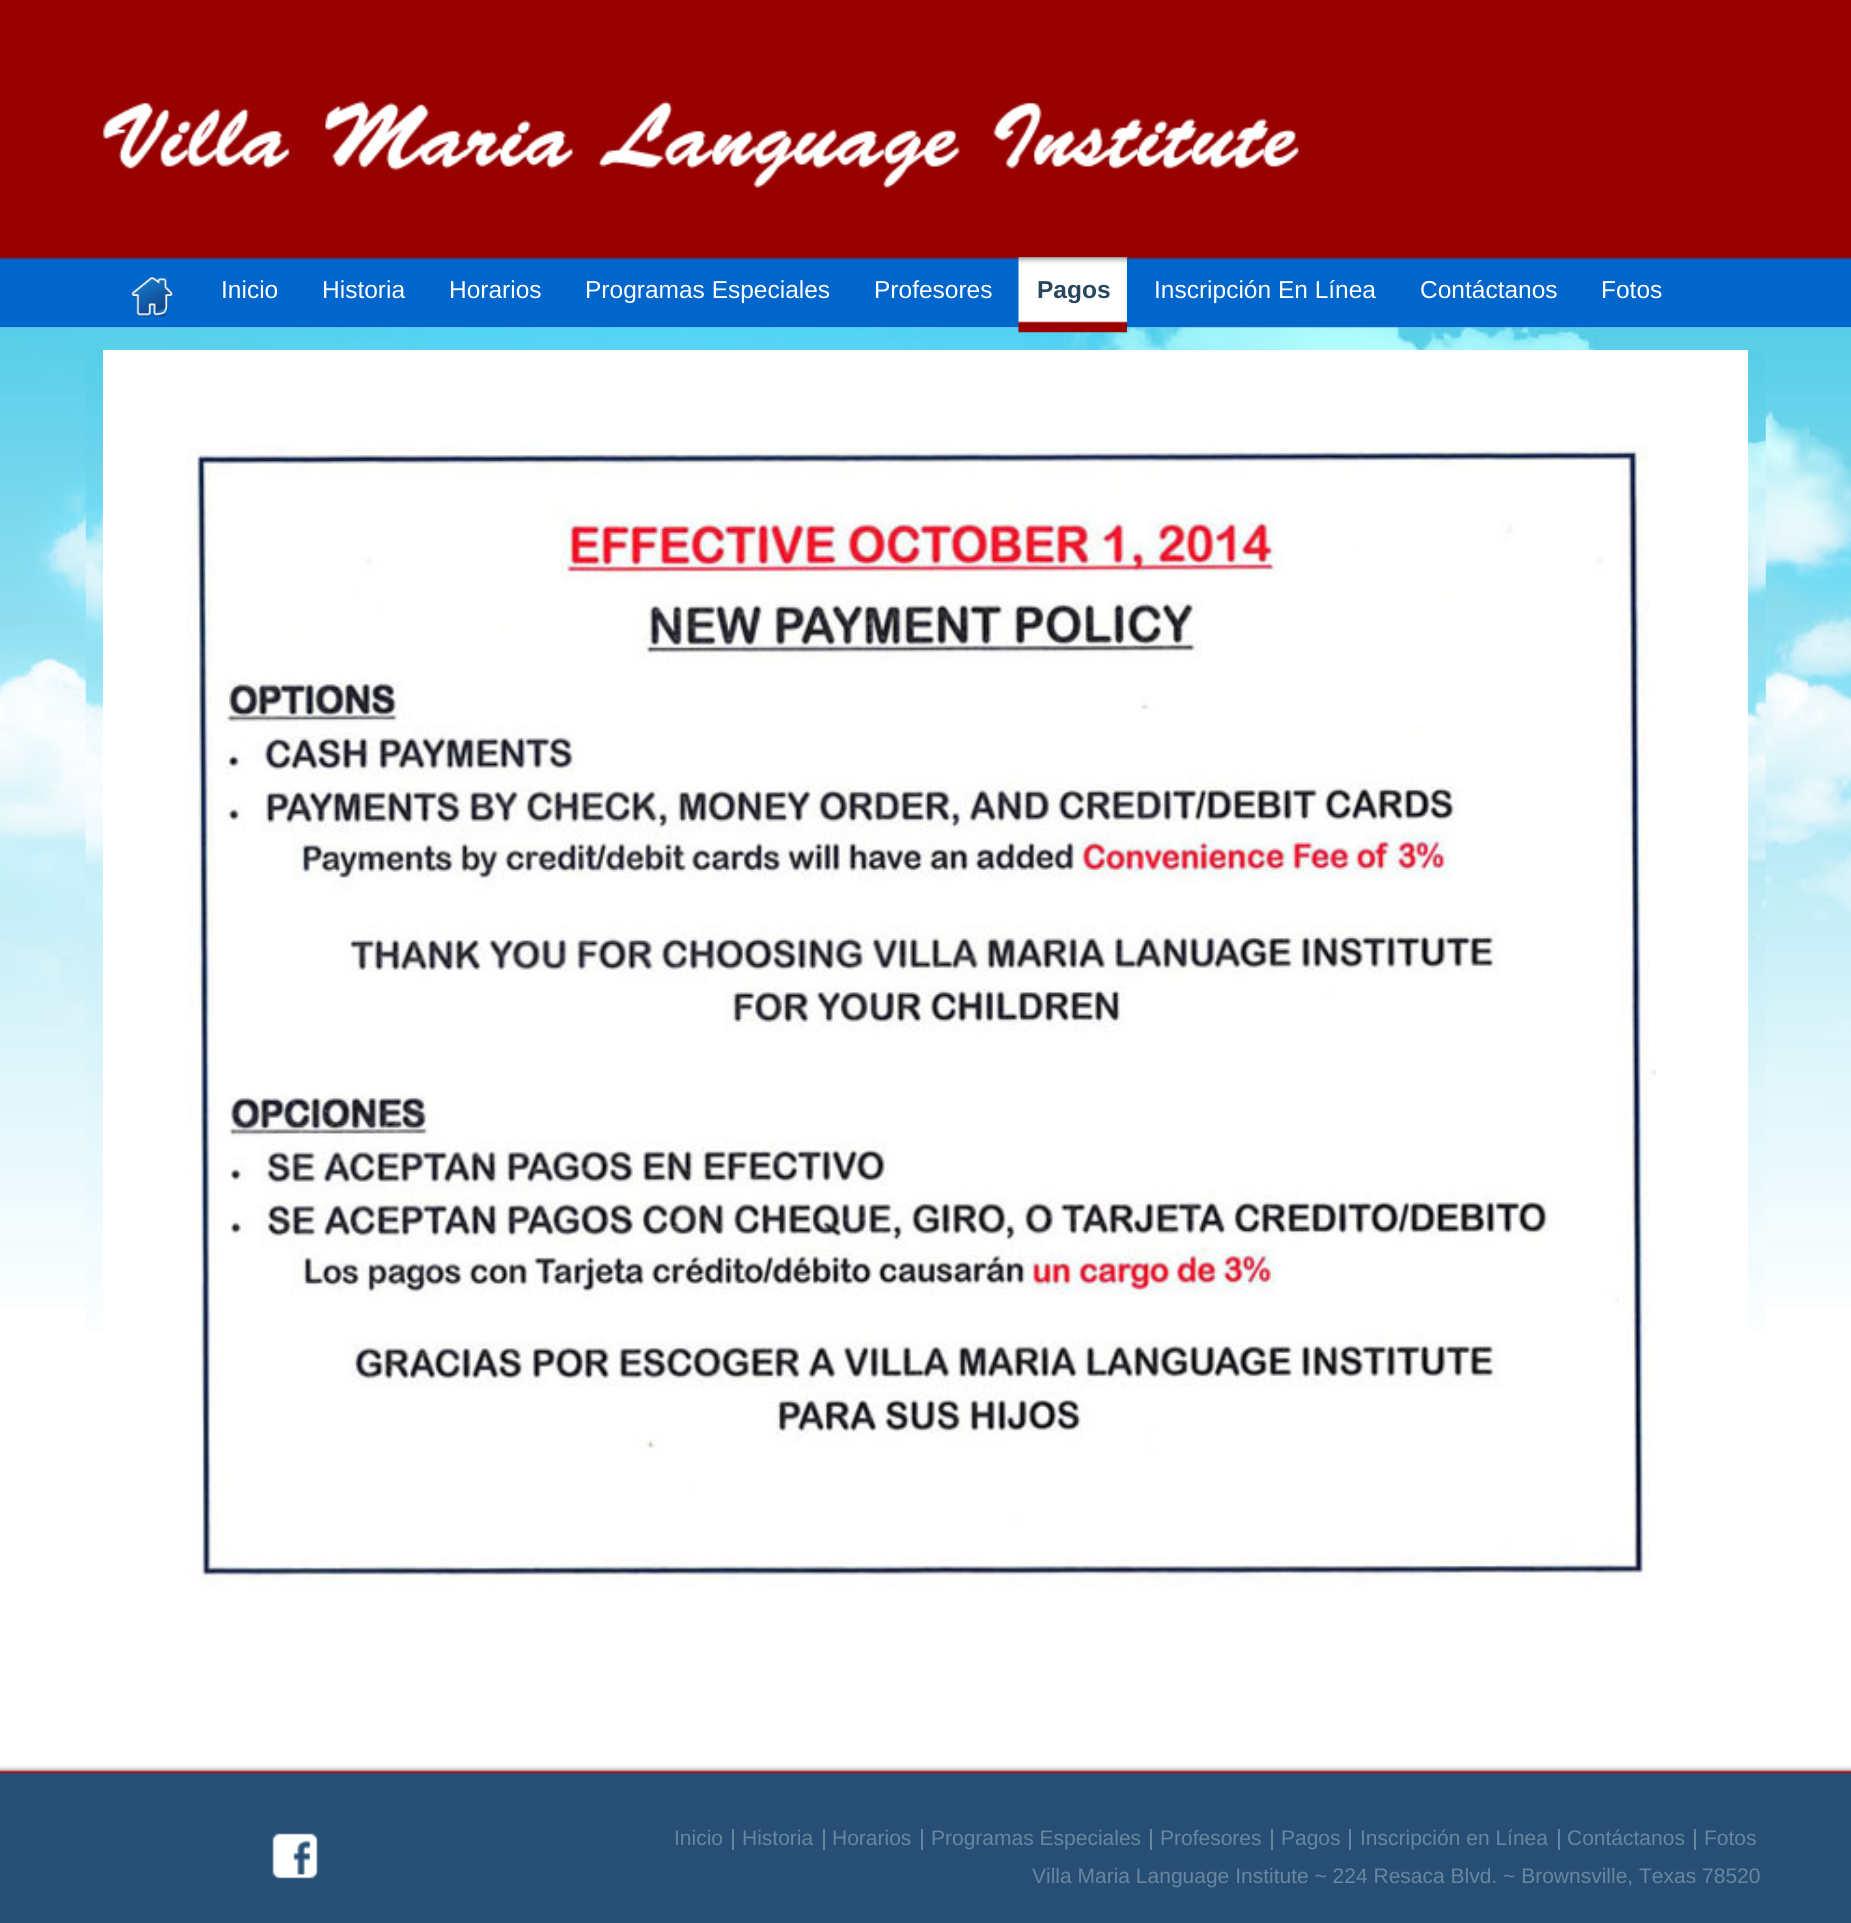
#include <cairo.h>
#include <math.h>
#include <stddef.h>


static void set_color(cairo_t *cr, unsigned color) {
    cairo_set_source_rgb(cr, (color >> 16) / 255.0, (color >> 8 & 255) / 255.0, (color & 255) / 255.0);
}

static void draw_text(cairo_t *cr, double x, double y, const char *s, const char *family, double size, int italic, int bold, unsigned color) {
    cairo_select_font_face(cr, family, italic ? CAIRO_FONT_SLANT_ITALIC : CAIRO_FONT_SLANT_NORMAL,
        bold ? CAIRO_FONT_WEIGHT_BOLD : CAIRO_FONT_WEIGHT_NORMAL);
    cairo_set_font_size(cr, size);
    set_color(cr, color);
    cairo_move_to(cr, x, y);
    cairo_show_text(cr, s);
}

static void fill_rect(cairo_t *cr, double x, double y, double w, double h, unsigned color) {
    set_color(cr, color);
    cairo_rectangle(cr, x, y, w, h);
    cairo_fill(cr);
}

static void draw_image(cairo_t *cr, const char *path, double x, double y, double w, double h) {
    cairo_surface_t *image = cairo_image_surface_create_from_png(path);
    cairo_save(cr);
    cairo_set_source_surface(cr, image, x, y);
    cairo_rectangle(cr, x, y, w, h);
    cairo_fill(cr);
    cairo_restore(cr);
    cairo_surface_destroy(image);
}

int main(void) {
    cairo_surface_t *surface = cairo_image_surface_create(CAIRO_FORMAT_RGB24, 1851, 1923);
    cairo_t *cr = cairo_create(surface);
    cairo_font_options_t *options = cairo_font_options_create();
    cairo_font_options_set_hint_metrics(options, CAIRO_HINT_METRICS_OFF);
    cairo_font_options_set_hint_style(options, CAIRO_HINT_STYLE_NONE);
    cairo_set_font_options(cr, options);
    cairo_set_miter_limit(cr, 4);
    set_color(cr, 0xFFFFFF);
    cairo_paint(cr);
    draw_image(cr, "assets/img1.png", 0, 327, 1851, 980);
    draw_image(cr, "assets/img2.png", 0, 0, 1851, 328);
    draw_image(cr, "assets/img3.png", 100, 98, 1204, 98);
    draw_image(cr, "assets/img4.png", 131, 277, 42, 41);
    draw_text(cr, 221, 298, "Inicio", "Liberation Sans", 24.5, 0, 0, 0xFFFFFF);
    draw_text(cr, 322, 298, "Historia", "Liberation Sans", 24.5, 0, 0, 0xFFFFFF);
    draw_text(cr, 449, 298, "Horarios", "Liberation Sans", 24.5, 0, 0, 0xFFFFFF);
    draw_text(cr, 585, 298, "Programas Especiales", "Liberation Sans", 24.5, 0, 0, 0xFFFFFF);
    draw_text(cr, 874, 298, "Profesores", "Liberation Sans", 24.5, 0, 0, 0xFFFFFF);
    draw_image(cr, "assets/img5.png", 1018, 257, 109, 76);
    draw_text(cr, 1037, 298, "Pagos", "Liberation Sans", 24.5, 0, 1, 0x28475C);
    draw_text(cr, 1154, 298, "Inscripción En Línea", "Liberation Sans", 24.5, 0, 0, 0xFFFFFF);
    draw_text(cr, 1420, 298, "Contáctanos", "Liberation Sans", 24.5, 0, 0, 0xFFFFFF);
    draw_text(cr, 1601, 298, "Fotos", "Liberation Sans", 24.5, 0, 0, 0xFFFFFF);
    draw_image(cr, "assets/img6.png", 85, 350, 1681, 980);
    fill_rect(cr, 103, 350, 1645, 980, 0xFFFFFF);
    draw_image(cr, "assets/img7.png", 187, 441, 1470, 1147);
    fill_rect(cr, 0, 1774, 1851, 149, 0x274F75);
    draw_image(cr, "assets/img8.png", 0, 1764, 1851, 10);
    draw_image(cr, "assets/img9.png", 272, 1833, 47, 46);
    draw_text(cr, 674, 1845, "Inicio", "Liberation Sans", 21, 0, 0, 0x6886A0);
    fill_rect(cr, 732, 1829, 2, 21, 0x6886A0);
    draw_text(cr, 742, 1845, "Historia", "Liberation Sans", 21, 0, 0, 0x6886A0);
    fill_rect(cr, 823, 1829, 2, 21, 0x6886A0);
    draw_text(cr, 832, 1845, "Horarios", "Liberation Sans", 21, 0, 0, 0x6886A0);
    fill_rect(cr, 921, 1829, 2, 21, 0x6886A0);
    draw_text(cr, 931, 1845, "Programas Especiales", "Liberation Sans", 21, 0, 0, 0x6886A0);
    fill_rect(cr, 1150, 1829, 2, 21, 0x6886A0);
    draw_text(cr, 1160, 1845, "Profesores", "Liberation Sans", 21, 0, 0, 0x6886A0);
    fill_rect(cr, 1271, 1829, 2, 21, 0x6886A0);
    draw_text(cr, 1281, 1845, "Pagos", "Liberation Sans", 21, 0, 0, 0x6886A0);
    fill_rect(cr, 1349, 1829, 2, 21, 0x6886A0);
    draw_text(cr, 1360, 1845, "Inscripción en Línea", "Liberation Sans", 21, 0, 0, 0x6886A0);
    fill_rect(cr, 1558, 1829, 2, 21, 0x6886A0);
    draw_text(cr, 1567, 1845, "Contáctanos", "Liberation Sans", 21, 0, 0, 0x6886A0);
    fill_rect(cr, 1694, 1829, 2, 21, 0x6886A0);
    draw_text(cr, 1704, 1845, "Fotos", "Liberation Sans", 21, 0, 0, 0x6886A0);
    draw_text(cr, 1032, 1883, "Villa Maria Language Institute ~ 224 Resaca Blvd. ~ Brownsville, Texas 78520", "Liberation Sans", 21, 0, 0, 0x6886A0);
    cairo_surface_write_to_png(surface, "output.png");
    cairo_font_options_destroy(options);
    cairo_destroy(cr);
    cairo_surface_destroy(surface);
    return 0;
}
